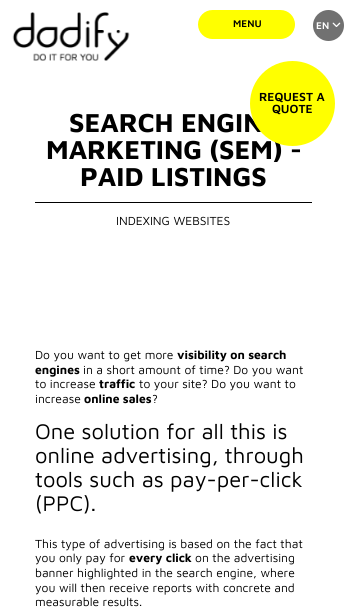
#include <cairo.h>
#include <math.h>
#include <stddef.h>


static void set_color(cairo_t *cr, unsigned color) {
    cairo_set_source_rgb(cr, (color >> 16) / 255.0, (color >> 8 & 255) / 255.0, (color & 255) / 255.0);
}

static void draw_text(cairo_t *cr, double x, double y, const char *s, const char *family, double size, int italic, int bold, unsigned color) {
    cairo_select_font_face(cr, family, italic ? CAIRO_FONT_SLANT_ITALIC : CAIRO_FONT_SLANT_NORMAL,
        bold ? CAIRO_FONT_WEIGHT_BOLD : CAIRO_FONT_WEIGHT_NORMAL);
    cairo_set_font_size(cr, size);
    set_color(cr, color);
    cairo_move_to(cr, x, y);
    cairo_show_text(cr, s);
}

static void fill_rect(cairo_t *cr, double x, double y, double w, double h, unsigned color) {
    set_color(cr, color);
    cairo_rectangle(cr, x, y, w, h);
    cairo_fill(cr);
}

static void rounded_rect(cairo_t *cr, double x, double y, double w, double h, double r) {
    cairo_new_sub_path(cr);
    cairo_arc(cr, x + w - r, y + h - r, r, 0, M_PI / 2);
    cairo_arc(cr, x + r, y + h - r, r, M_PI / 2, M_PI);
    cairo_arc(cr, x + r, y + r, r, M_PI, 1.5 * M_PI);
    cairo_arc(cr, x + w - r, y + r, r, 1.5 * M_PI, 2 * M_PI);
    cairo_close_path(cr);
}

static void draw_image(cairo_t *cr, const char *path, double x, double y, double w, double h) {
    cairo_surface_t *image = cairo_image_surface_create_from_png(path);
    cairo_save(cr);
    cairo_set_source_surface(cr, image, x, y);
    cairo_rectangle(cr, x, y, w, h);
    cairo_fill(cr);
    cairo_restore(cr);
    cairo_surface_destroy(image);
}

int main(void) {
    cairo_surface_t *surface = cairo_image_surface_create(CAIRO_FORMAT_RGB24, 347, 613);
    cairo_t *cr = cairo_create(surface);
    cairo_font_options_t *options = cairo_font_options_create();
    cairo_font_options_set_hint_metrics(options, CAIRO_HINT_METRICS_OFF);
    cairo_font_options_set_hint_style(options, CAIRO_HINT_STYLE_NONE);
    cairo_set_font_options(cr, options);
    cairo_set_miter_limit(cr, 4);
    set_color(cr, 0xFFFFFF);
    cairo_paint(cr);
    draw_image(cr, "assets/img1.png", 12, 12, 118, 49);
    set_color(cr, 0xFFFF00);
    rounded_rect(cr, 198, 10, 97, 29, 14.5);
    cairo_fill(cr);
    draw_text(cr, 233, 27, "MENU", "Maven Pro SemiBold", 10, 0, 0, 0x000000);
    set_color(cr, 0x717171);
    cairo_new_path(cr);
    cairo_arc(cr, 328.5, 25.5, 15.5, 0, 2 * M_PI);
    cairo_fill(cr);
    draw_text(cr, 316, 29, "EN", "Maven Pro SemiBold", 10, 0, 0, 0xFFFFFF);
    draw_image(cr, "assets/img2.png", 332, 22, 9, 5);
    draw_text(cr, 69, 132, "SEARCH ENGIN", "Maven Pro", 26.75, 0, 1, 0x000000);
    draw_text(cr, 46, 159, "MARKETING (SEM) -", "Maven Pro", 26.75, 0, 1, 0x000000);
    set_color(cr, 0xFFFF00);
    cairo_new_path(cr);
    cairo_arc(cr, 292.5, 103.5, 42.5, 0, 2 * M_PI);
    cairo_fill(cr);
    draw_text(cr, 259, 101, "REQUEST A", "Maven Pro SemiBold", 12.1, 0, 0, 0x000000);
    draw_text(cr, 272, 113, "QUOTE", "Maven Pro SemiBold", 12.1, 0, 0, 0x000000);
    draw_text(cr, 80, 186, "PAID LISTINGS", "Maven Pro", 26.75, 0, 1, 0x000000);
    fill_rect(cr, 35, 202, 277, 1, 0x000000);
    draw_text(cr, 116, 225, "INDEXING WEBSITES", "Maven Pro", 12.1, 0, 0, 0x000000);
    draw_text(cr, 35, 359, "Do you want to get more", "Maven Pro", 12.1, 0, 0, 0x000000);
    draw_text(cr, 177, 359, "visibility on search", "Maven Pro", 12.1, 0, 1, 0x000000);
    draw_text(cr, 35, 374, "engines", "Maven Pro", 12.1, 0, 1, 0x000000);
    draw_text(cr, 83, 374, "in a short amount of time? Do you want", "Maven Pro", 12.1, 0, 0, 0x000000);
    draw_text(cr, 35, 388, "to increase", "Maven Pro", 12.1, 0, 0, 0x000000);
    draw_text(cr, 99, 388, "traffic", "Maven Pro", 12.1, 0, 1, 0x000000);
    draw_text(cr, 139, 388, "to your site? Do you want to", "Maven Pro", 12.1, 0, 0, 0x000000);
    draw_text(cr, 35, 403, "increase", "Maven Pro", 12.1, 0, 0, 0x000000);
    draw_text(cr, 84, 403, "online sales", "Maven Pro", 12.1, 0, 1, 0x000000);
    draw_text(cr, 152, 403, "?", "Maven Pro", 12.1, 0, 0, 0x000000);
    draw_text(cr, 35, 439, "One solution for all this is", "Maven Pro", 21.9, 0, 0, 0x000000);
    draw_text(cr, 35, 463, "online advertising, through", "Maven Pro", 21.9, 0, 0, 0x000000);
    draw_text(cr, 35, 487, "tools such as pay-per-click", "Maven Pro", 21.9, 0, 0, 0x000000);
    draw_text(cr, 35, 511, "(PPC).", "Maven Pro", 21.9, 0, 0, 0x000000);
    draw_text(cr, 35, 548, "This type of advertising is based on the fact that", "Maven Pro", 12.1, 0, 0, 0x000000);
    draw_text(cr, 35, 562, "you only pay for", "Maven Pro", 12.1, 0, 0, 0x000000);
    draw_text(cr, 129, 562, "every click", "Maven Pro", 12.1, 0, 1, 0x000000);
    draw_text(cr, 195, 562, "on the advertising", "Maven Pro", 12.1, 0, 0, 0x000000);
    draw_text(cr, 35, 577, "banner highlighted in the search engine, where", "Maven Pro", 12.1, 0, 0, 0x000000);
    draw_text(cr, 35, 592, "you will then receive reports with concrete and", "Maven Pro", 12.1, 0, 0, 0x000000);
    draw_text(cr, 35, 606, "measurable results.", "Maven Pro", 12.1, 0, 0, 0x000000);
    cairo_surface_write_to_png(surface, "output.png");
    cairo_font_options_destroy(options);
    cairo_destroy(cr);
    cairo_surface_destroy(surface);
    return 0;
}
